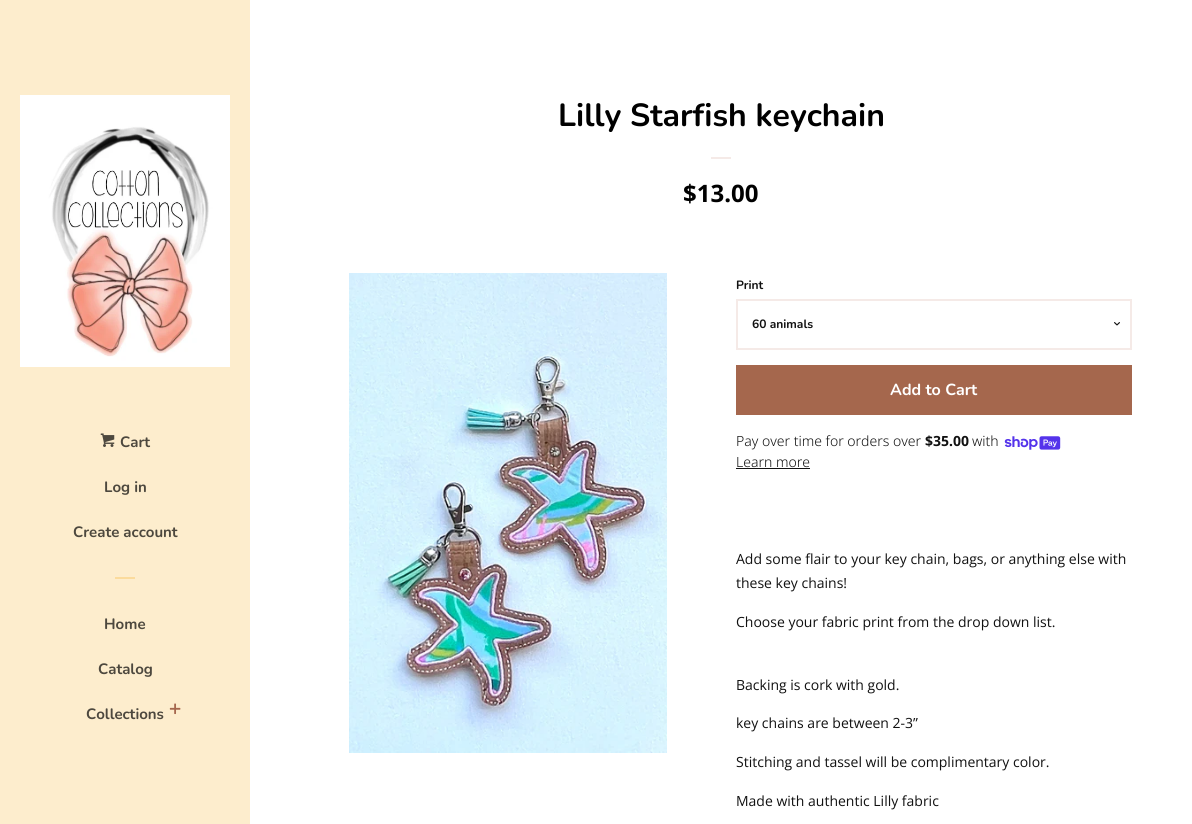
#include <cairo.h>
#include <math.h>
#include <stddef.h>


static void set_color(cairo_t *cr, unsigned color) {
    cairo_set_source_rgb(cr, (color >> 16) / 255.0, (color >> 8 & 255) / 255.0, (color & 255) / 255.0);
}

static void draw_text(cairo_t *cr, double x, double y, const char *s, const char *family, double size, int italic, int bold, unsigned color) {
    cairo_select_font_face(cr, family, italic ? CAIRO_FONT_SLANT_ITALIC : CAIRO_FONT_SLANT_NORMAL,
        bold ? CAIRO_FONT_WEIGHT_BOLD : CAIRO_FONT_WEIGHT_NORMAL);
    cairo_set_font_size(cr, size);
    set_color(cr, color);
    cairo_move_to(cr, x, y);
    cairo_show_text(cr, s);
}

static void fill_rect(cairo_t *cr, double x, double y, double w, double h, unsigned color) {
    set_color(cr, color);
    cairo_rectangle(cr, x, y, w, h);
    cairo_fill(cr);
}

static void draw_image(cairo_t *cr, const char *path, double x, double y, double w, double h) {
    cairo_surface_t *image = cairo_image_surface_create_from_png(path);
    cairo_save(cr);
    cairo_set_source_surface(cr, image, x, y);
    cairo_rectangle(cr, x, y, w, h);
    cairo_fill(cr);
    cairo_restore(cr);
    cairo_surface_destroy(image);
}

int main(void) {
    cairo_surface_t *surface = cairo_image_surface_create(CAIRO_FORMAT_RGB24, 1192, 824);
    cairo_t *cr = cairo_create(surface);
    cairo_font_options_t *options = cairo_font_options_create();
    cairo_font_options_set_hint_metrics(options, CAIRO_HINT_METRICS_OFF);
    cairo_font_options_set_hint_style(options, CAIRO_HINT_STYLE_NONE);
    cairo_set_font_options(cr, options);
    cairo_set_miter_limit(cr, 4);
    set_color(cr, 0xFDEDCD);
    cairo_paint(cr);
    draw_image(cr, "assets/img1.png", 20, 95, 210, 272);
    draw_image(cr, "assets/img2.png", 100, 433, 15, 14);
    draw_text(cr, 120, 447, "Cart", "Nunito ExtraLight", 15, 0, 0, 0x4D483E);
    draw_text(cr, 104, 492, "Log in", "Nunito ExtraLight", 15, 0, 0, 0x4D483E);
    draw_text(cr, 73, 537, "Create account", "Nunito ExtraLight", 15, 0, 0, 0x4D483E);
    fill_rect(cr, 115, 577, 20, 2, 0xFBDB9C);
    draw_text(cr, 104, 629, "Home", "Nunito ExtraLight", 15, 0, 0, 0x4D483E);
    draw_text(cr, 98, 674, "Catalog", "Nunito ExtraLight", 15, 0, 0, 0x4D483E);
    draw_text(cr, 86, 719, "Collections", "Nunito ExtraLight", 15, 0, 0, 0x4D483E);
    draw_image(cr, "assets/img3.png", 169, 703, 12, 12);
    fill_rect(cr, 250, 0, 942, 824, 0xFFFFFF);
    draw_text(cr, 558, 126, "Lilly Starfish keychain", "Nunito ExtraLight", 32, 0, 0, 0x000000);
    fill_rect(cr, 711, 157, 20, 2, 0xF5EAE7);
    draw_text(cr, 683, 202, "$13.00", "Open Sans", 24, 0, 1, 0x000000);
    draw_image(cr, "assets/img4.png", 349, 273, 318, 480);
    draw_text(cr, 736, 289, "Print", "Nunito ExtraLight", 12, 0, 0, 0x111111);
    draw_image(cr, "assets/img5.png", 1114, 322, 6, 4);
    cairo_rectangle(cr, 737, 300, 394, 49);
    set_color(cr, 0xF5EAE7);
    cairo_stroke(cr);
    draw_text(cr, 752, 328, "60 animals", "Nunito ExtraLight", 12, 0, 0, 0x111111);
    fill_rect(cr, 736, 365, 396, 50, 0xA5674D);
    draw_text(cr, 890, 395, "Add to Cart", "Nunito ExtraLight", 16, 0, 0, 0xFFFFFF);
    draw_text(cr, 736, 446, "Pay over time for orders over", "Noto Sans Light", 14, 0, 0, 0x111111);
    draw_text(cr, 925, 446, "$35.00", "Noto Sans", 14, 0, 1, 0x111111);
    draw_text(cr, 972, 446, "with", "Noto Sans Light", 14, 0, 0, 0x111111);
    draw_image(cr, "assets/img6.png", 1004, 436, 57, 14);
    draw_text(cr, 736, 467, "Learn more", "Noto Sans Light", 14, 0, 0, 0x111111);
    fill_rect(cr, 736, 468, 74, 1, 0x111111);
    draw_text(cr, 736, 564, "Add some flair to your key chain, bags, or anything else with", "Open Sans", 14, 0, 0, 0x111111);
    draw_text(cr, 736, 588, "these key chains!", "Open Sans", 14, 0, 0, 0x111111);
    draw_text(cr, 736, 627, "Choose your fabric print from the drop down list.", "Open Sans", 14, 0, 0, 0x111111);
    draw_text(cr, 736, 690, "Backing is cork with gold.", "Open Sans", 14, 0, 0, 0x111111);
    draw_text(cr, 736, 728, "key chains are between 2-3”", "Open Sans", 14, 0, 0, 0x111111);
    draw_text(cr, 736, 767, "Stitching and tassel will be complimentary color.", "Open Sans", 14, 0, 0, 0x111111);
    draw_text(cr, 736, 806, "Made with authentic Lilly fabric", "Open Sans", 14, 0, 0, 0x111111);
    cairo_surface_write_to_png(surface, "output.png");
    cairo_font_options_destroy(options);
    cairo_destroy(cr);
    cairo_surface_destroy(surface);
    return 0;
}
